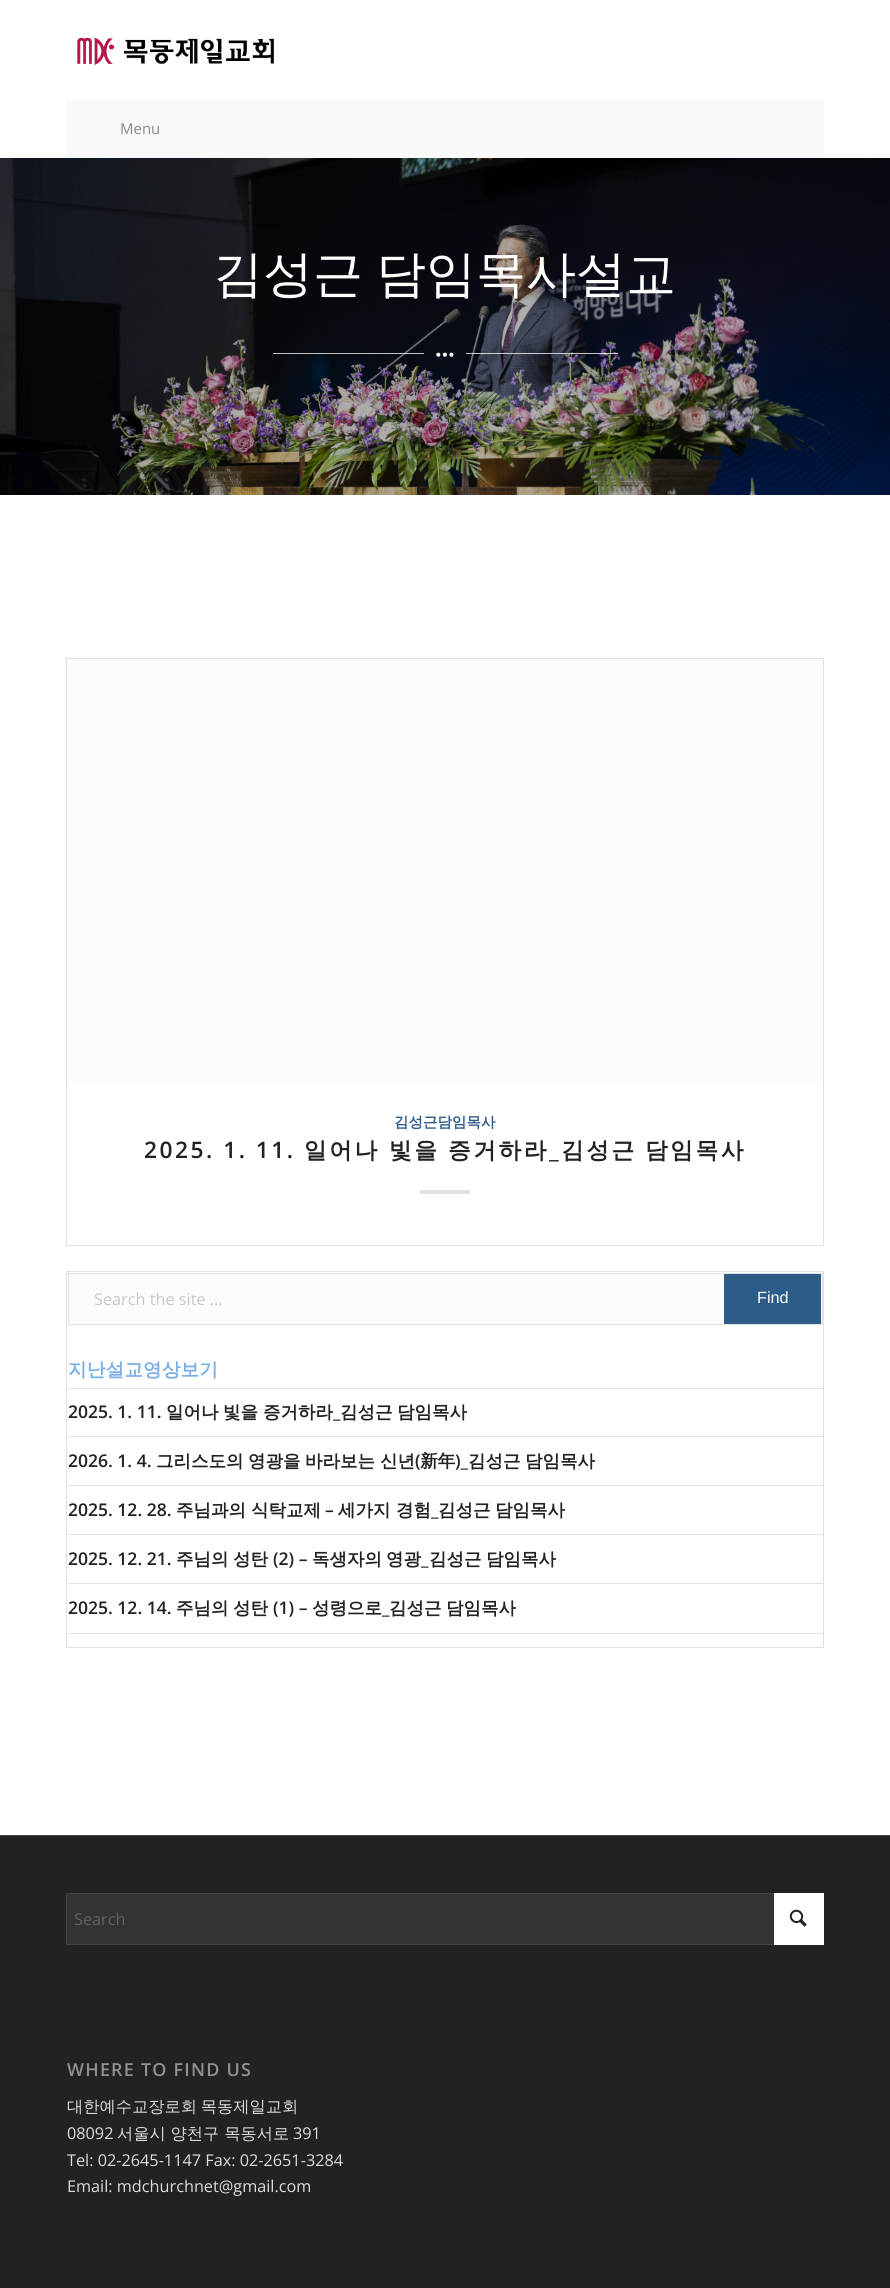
#include <cairo.h>
#include <math.h>
#include <stddef.h>


static void set_color(cairo_t *cr, unsigned color) {
    cairo_set_source_rgb(cr, (color >> 16) / 255.0, (color >> 8 & 255) / 255.0, (color & 255) / 255.0);
}

static void draw_text(cairo_t *cr, double x, double y, const char *s, const char *family, double size, int italic, int bold, unsigned color) {
    cairo_select_font_face(cr, family, italic ? CAIRO_FONT_SLANT_ITALIC : CAIRO_FONT_SLANT_NORMAL,
        bold ? CAIRO_FONT_WEIGHT_BOLD : CAIRO_FONT_WEIGHT_NORMAL);
    cairo_set_font_size(cr, size);
    set_color(cr, color);
    cairo_move_to(cr, x, y);
    cairo_show_text(cr, s);
}

static void draw_spaced(cairo_t *cr, double x, double y, const char *s, double letter, double word) {
    cairo_move_to(cr, x, y);
    while (*s) {
        char ch[5] = {0};
        int n = 0;
        do ch[n++] = *s++; while ((*s & 0xC0) == 0x80);
        cairo_show_text(cr, ch);
        cairo_rel_move_to(cr, letter + word * (*ch == ' '), 0);
    }
}

static void fill_rect(cairo_t *cr, double x, double y, double w, double h, unsigned color) {
    set_color(cr, color);
    cairo_rectangle(cr, x, y, w, h);
    cairo_fill(cr);
}

static void rounded_rect(cairo_t *cr, double x, double y, double w, double h, double r) {
    cairo_new_sub_path(cr);
    cairo_arc(cr, x + w - r, y + h - r, r, 0, M_PI / 2);
    cairo_arc(cr, x + r, y + h - r, r, M_PI / 2, M_PI);
    cairo_arc(cr, x + r, y + r, r, M_PI, 1.5 * M_PI);
    cairo_arc(cr, x + w - r, y + r, r, 1.5 * M_PI, 2 * M_PI);
    cairo_close_path(cr);
}

static void draw_image(cairo_t *cr, const char *path, double x, double y, double w, double h) {
    cairo_surface_t *image = cairo_image_surface_create_from_png(path);
    cairo_save(cr);
    cairo_set_source_surface(cr, image, x, y);
    cairo_rectangle(cr, x, y, w, h);
    cairo_fill(cr);
    cairo_restore(cr);
    cairo_surface_destroy(image);
}

int main(void) {
    cairo_surface_t *surface = cairo_image_surface_create(CAIRO_FORMAT_RGB24, 890, 2288);
    cairo_t *cr = cairo_create(surface);
    cairo_font_options_t *options = cairo_font_options_create();
    cairo_font_options_set_hint_metrics(options, CAIRO_HINT_METRICS_OFF);
    cairo_font_options_set_hint_style(options, CAIRO_HINT_STYLE_NONE);
    cairo_set_font_options(cr, options);
    cairo_set_miter_limit(cr, 4);
    set_color(cr, 0xFFFFFF);
    cairo_paint(cr);
    draw_image(cr, "assets/img1.png", 77, 37, 197, 28);
    fill_rect(cr, 66, 100, 758, 58, 0xF9F9F9);
    draw_text(cr, 120, 134, "Menu", "Open Sans", 15, 0, 0, 0x888888);
    draw_image(cr, "assets/img2.png", 0, 158, 890, 337);
    draw_image(cr, "assets/img3.png", 25, 158, 730, 337);
    cairo_select_font_face(cr, "WenQuanYi Zen Hei Medium", CAIRO_FONT_SLANT_NORMAL, CAIRO_FONT_WEIGHT_NORMAL);
    cairo_set_font_size(cr, 50);
    set_color(cr, 0xFFFFFF);
    draw_spaced(cr, 213, 291, "김성근 담임목사설교", 0, -2);
    cairo_set_source_rgba(cr, 1, 1, 1, 0.76);
    cairo_rectangle(cr, 273, 353, 151, 1);
    cairo_fill(cr);
    draw_image(cr, "assets/img4.png", 436, 352, 18, 5);
    cairo_rectangle(cr, 466, 353, 152, 1);
    cairo_fill(cr);
    cairo_rectangle(cr, 66.5, 658.5, 757, 587);
    set_color(cr, 0xE1E1E1);
    cairo_set_line_width(cr, 1);
    cairo_stroke(cr);
    set_color(cr, 0xFCFCFC);
    rounded_rect(cr, 68, 659, 755, 424, 4);
    cairo_fill(cr);
    draw_text(cr, 394, 1127, "김성근담임목사", "WenQuanYi Zen Hei", 14.5, 0, 1, 0x2D5C88);
    cairo_select_font_face(cr, "Open Sans SemiBold", CAIRO_FONT_SLANT_NORMAL, CAIRO_FONT_WEIGHT_NORMAL);
    cairo_set_font_size(cr, 22.75);
    set_color(cr, 0x222222);
    draw_spaced(cr, 144, 1158, "2025. 1. 11.", 2.5, 0);
    cairo_select_font_face(cr, "WenQuanYi Zen Hei", CAIRO_FONT_SLANT_NORMAL, CAIRO_FONT_WEIGHT_BOLD);
    draw_spaced(cr, 304, 1158, "일어나", 2.5, 0);
    draw_spaced(cr, 389, 1158, "빛을", 2.5, 0);
    draw_spaced(cr, 448, 1158, "증거하라", 2.5, 0);
    draw_spaced(cr, 561, 1158, "김성근", 2.5, 0);
    draw_spaced(cr, 645, 1158, "담임목사", 2.5, 0);
    cairo_select_font_face(cr, "Open Sans SemiBold", CAIRO_FONT_SLANT_NORMAL, CAIRO_FONT_WEIGHT_NORMAL);
    draw_spaced(cr, 549, 1158, "_", 2.5, 0);
    fill_rect(cr, 420, 1190, 50, 4, 0xE1E1E1);
    cairo_rectangle(cr, 66.5, 1271.5, 757, 376);
    cairo_stroke(cr);
    cairo_rectangle(cr, 68.5, 1273.5, 754, 51);
    cairo_stroke(cr);
    fill_rect(cr, 69, 1274, 655, 50, 0xFCFCFC);
    draw_text(cr, 94, 1305, "Search the site ...", "Open Sans", 16.25, 0, 0, 0xC7C7C7);
    fill_rect(cr, 724, 1274, 97, 50, 0x2D5C88);
    draw_text(cr, 757, 1303, "Find", "Liberation Sans", 16.25, 0, 0, 0xFFFFFF);
    fill_rect(cr, 68, 1388, 755, 1, 0xE1E1E1);
    draw_text(cr, 68, 1376, "지난설교영상보기", "WenQuanYi Zen Hei", 18.75, 0, 1, 0x7BB0E7);
    fill_rect(cr, 68, 1436, 755, 1, 0xE1E1E1);
    draw_text(cr, 68, 1418, "2025. 1. 11.", "Open Sans SemiBold", 17.5, 0, 0, 0x222222);
    draw_text(cr, 166, 1418, "일어나", "WenQuanYi Zen Hei", 17.5, 0, 1, 0x222222);
    draw_text(cr, 223, 1418, "빛을", "WenQuanYi Zen Hei", 17.5, 0, 1, 0x222222);
    draw_text(cr, 263, 1418, "증거하라", "WenQuanYi Zen Hei", 17.5, 0, 1, 0x222222);
    draw_text(cr, 340, 1418, "김성근", "WenQuanYi Zen Hei", 17.5, 0, 1, 0x222222);
    draw_text(cr, 397, 1418, "담임목사", "WenQuanYi Zen Hei", 17.5, 0, 1, 0x222222);
    draw_text(cr, 333, 1418, "_", "Open Sans SemiBold", 17.5, 0, 0, 0x222222);
    fill_rect(cr, 68, 1485, 755, 1, 0xE1E1E1);
    draw_text(cr, 68, 1467, "2026. 1. 4.", "Open Sans SemiBold", 17.5, 0, 0, 0x222222);
    draw_text(cr, 156, 1467, "그리스도의", "WenQuanYi Zen Hei", 17.5, 0, 1, 0x222222);
    draw_text(cr, 248, 1467, "영광을", "WenQuanYi Zen Hei", 17.5, 0, 1, 0x222222);
    draw_text(cr, 305, 1467, "바라보는", "WenQuanYi Zen Hei", 17.5, 0, 1, 0x222222);
    draw_text(cr, 380, 1467, "신년 新年", "WenQuanYi Zen Hei", 17.5, 0, 1, 0x222222);
    draw_text(cr, 468, 1467, "김성근", "WenQuanYi Zen Hei", 17.5, 0, 1, 0x222222);
    draw_text(cr, 525, 1467, "담임목사", "WenQuanYi Zen Hei", 17.5, 0, 1, 0x222222);
    draw_text(cr, 415, 1467, "(", "Open Sans SemiBold", 17.5, 0, 0, 0x222222);
    draw_text(cr, 455, 1467, ")_", "Open Sans SemiBold", 17.5, 0, 0, 0x222222);
    fill_rect(cr, 68, 1534, 755, 1, 0xE1E1E1);
    draw_text(cr, 68, 1516, "2025. 12. 28.", "Open Sans SemiBold", 17.5, 0, 0, 0x222222);
    draw_text(cr, 176, 1516, "주님과의", "WenQuanYi Zen Hei", 17.5, 0, 1, 0x222222);
    draw_text(cr, 251, 1516, "식탁교제", "WenQuanYi Zen Hei", 17.5, 0, 1, 0x222222);
    draw_text(cr, 325, 1516, "–", "Open Sans SemiBold", 17.5, 0, 0, 0x222222);
    draw_text(cr, 338, 1516, "세가지", "WenQuanYi Zen Hei", 17.5, 0, 1, 0x222222);
    draw_text(cr, 396, 1516, "경험", "WenQuanYi Zen Hei", 17.5, 0, 1, 0x222222);
    draw_text(cr, 438, 1516, "김성근", "WenQuanYi Zen Hei", 17.5, 0, 1, 0x222222);
    draw_text(cr, 495, 1516, "담임목사", "WenQuanYi Zen Hei", 17.5, 0, 1, 0x222222);
    draw_text(cr, 431, 1516, "_", "Open Sans SemiBold", 17.5, 0, 0, 0x222222);
    fill_rect(cr, 68, 1583, 755, 1, 0xE1E1E1);
    draw_text(cr, 68, 1565, "2025. 12. 21.", "Open Sans SemiBold", 17.5, 0, 0, 0x222222);
    draw_text(cr, 176, 1565, "주님의", "WenQuanYi Zen Hei", 17.5, 0, 1, 0x222222);
    draw_text(cr, 233, 1565, "성탄", "WenQuanYi Zen Hei", 17.5, 0, 1, 0x222222);
    draw_text(cr, 273, 1565, "(2) –", "Open Sans SemiBold", 17.5, 0, 0, 0x222222);
    draw_text(cr, 312, 1565, "독생자의", "WenQuanYi Zen Hei", 17.5, 0, 1, 0x222222);
    draw_text(cr, 386, 1565, "영광", "WenQuanYi Zen Hei", 17.5, 0, 1, 0x222222);
    draw_text(cr, 421, 1565, "_", "Open Sans SemiBold", 17.5, 0, 0, 0x222222);
    draw_text(cr, 429, 1565, "김성근", "WenQuanYi Zen Hei", 17.5, 0, 1, 0x222222);
    draw_text(cr, 486, 1565, "담임목사", "WenQuanYi Zen Hei", 17.5, 0, 1, 0x222222);
    fill_rect(cr, 68, 1633, 755, 1, 0xE1E1E1);
    draw_text(cr, 68, 1614, "2025. 12. 14.", "Open Sans SemiBold", 17.5, 0, 0, 0x222222);
    draw_text(cr, 176, 1614, "주님의", "WenQuanYi Zen Hei", 17.5, 0, 1, 0x222222);
    draw_text(cr, 233, 1614, "성탄", "WenQuanYi Zen Hei", 17.5, 0, 1, 0x222222);
    draw_text(cr, 273, 1614, "(1) –", "Open Sans SemiBold", 17.5, 0, 0, 0x222222);
    draw_text(cr, 312, 1614, "성령으로", "WenQuanYi Zen Hei", 17.5, 0, 1, 0x222222);
    draw_text(cr, 382, 1614, "_", "Open Sans SemiBold", 17.5, 0, 0, 0x222222);
    draw_text(cr, 389, 1614, "김성근", "WenQuanYi Zen Hei", 17.5, 0, 1, 0x222222);
    draw_text(cr, 446, 1614, "담임목사", "WenQuanYi Zen Hei", 17.5, 0, 1, 0x222222);
    fill_rect(cr, 0, 1836, 890, 452, 0x222222);
    fill_rect(cr, 0, 1835, 890, 1, 0x444444);
    fill_rect(cr, 67, 1894, 707, 50, 0x333333);
    cairo_rectangle(cr, 66.5, 1893.5, 757, 51);
    set_color(cr, 0x444444);
    cairo_stroke(cr);
    fill_rect(cr, 774, 1893, 50, 52, 0xFFFFFF);
    draw_text(cr, 74, 1925, "Search", "Open Sans", 16.25, 0, 0, 0x626262);
    draw_image(cr, "assets/img5.png", 789, 1909, 18, 18);
    cairo_select_font_face(cr, "Open Sans SemiBold", CAIRO_FONT_SLANT_NORMAL, CAIRO_FONT_WEIGHT_NORMAL);
    cairo_set_font_size(cr, 17.9);
    set_color(cr, 0x919191);
    draw_spaced(cr, 67, 2076, "WHERE TO FIND US", 1.25, 0);
    cairo_select_font_face(cr, "WenQuanYi Zen Hei Medium", CAIRO_FONT_SLANT_NORMAL, CAIRO_FONT_WEIGHT_NORMAL);
    cairo_set_font_size(cr, 16.25);
    set_color(cr, 0xDDDDDD);
    draw_spaced(cr, 67, 2112, "대한예수교장로회 목동제일교회", 0, -1);
    draw_text(cr, 67, 2139, "08092", "Open Sans", 16.25, 0, 0, 0xDDDDDD);
    draw_text(cr, 117, 2139, "서울시 양천구 목동서로", "WenQuanYi Zen Hei Medium", 16.25, 0, 0, 0xDDDDDD);
    draw_text(cr, 293, 2139, "391", "Open Sans", 16.25, 0, 0, 0xDDDDDD);
    draw_text(cr, 67, 2166, "Tel: 02-2645-1147 Fax: 02-2651-3284", "Open Sans", 16.25, 0, 0, 0xDDDDDD);
    draw_text(cr, 67, 2192, "Email: mdchurchnet@gmail.com", "Open Sans", 16.25, 0, 0, 0xDDDDDD);
    cairo_surface_write_to_png(surface, "output.png");
    cairo_font_options_destroy(options);
    cairo_destroy(cr);
    cairo_surface_destroy(surface);
    return 0;
}
